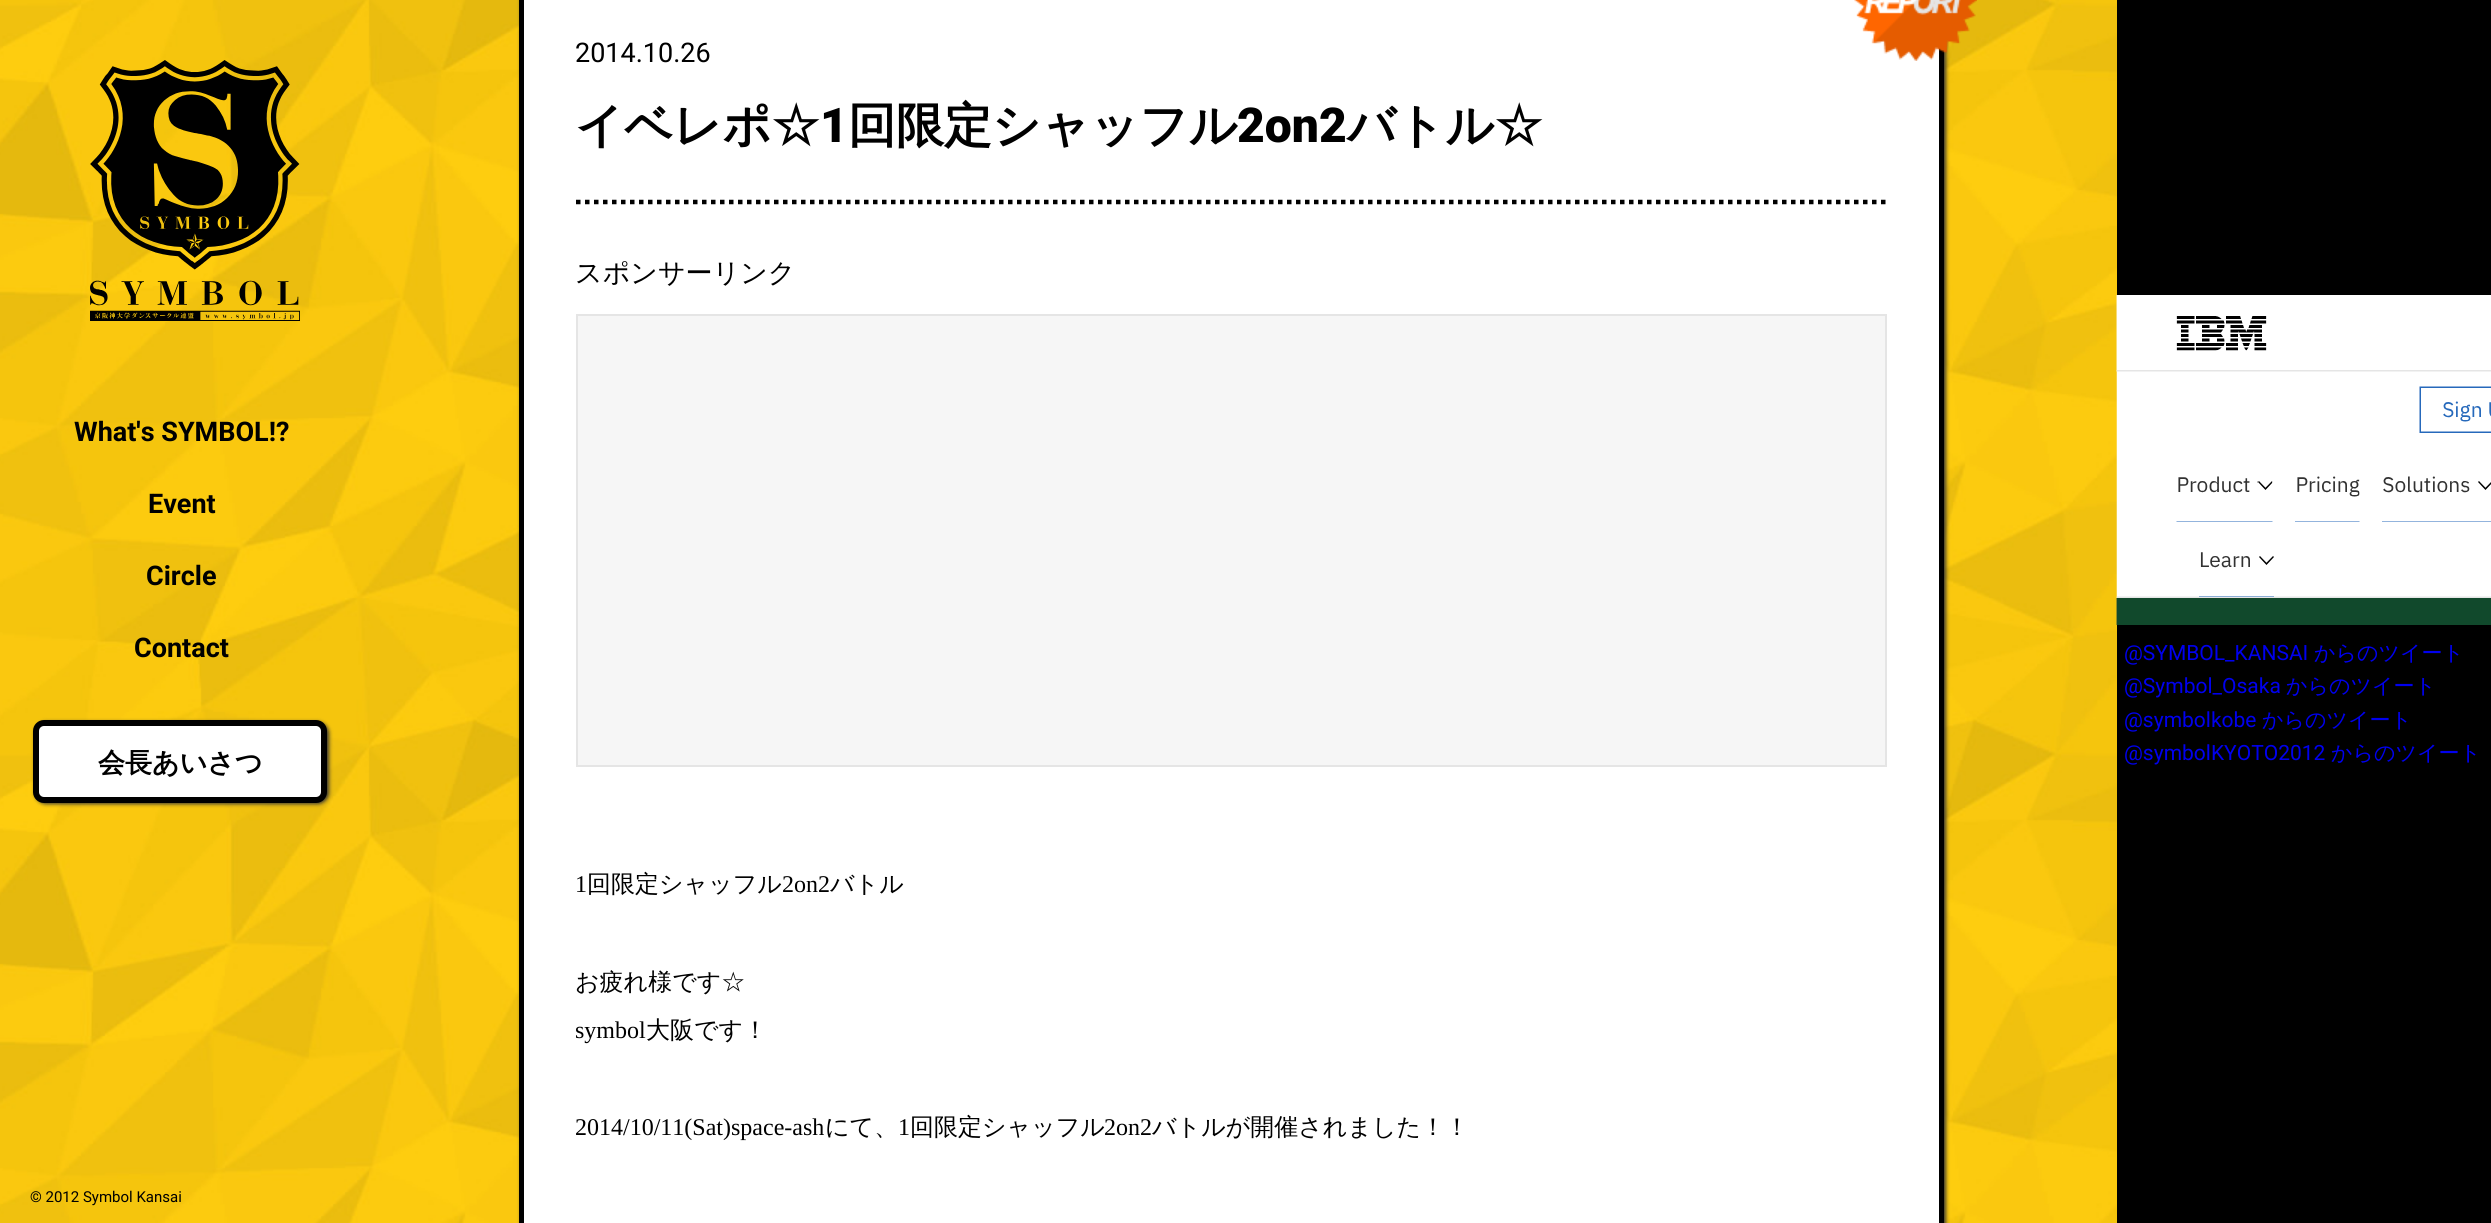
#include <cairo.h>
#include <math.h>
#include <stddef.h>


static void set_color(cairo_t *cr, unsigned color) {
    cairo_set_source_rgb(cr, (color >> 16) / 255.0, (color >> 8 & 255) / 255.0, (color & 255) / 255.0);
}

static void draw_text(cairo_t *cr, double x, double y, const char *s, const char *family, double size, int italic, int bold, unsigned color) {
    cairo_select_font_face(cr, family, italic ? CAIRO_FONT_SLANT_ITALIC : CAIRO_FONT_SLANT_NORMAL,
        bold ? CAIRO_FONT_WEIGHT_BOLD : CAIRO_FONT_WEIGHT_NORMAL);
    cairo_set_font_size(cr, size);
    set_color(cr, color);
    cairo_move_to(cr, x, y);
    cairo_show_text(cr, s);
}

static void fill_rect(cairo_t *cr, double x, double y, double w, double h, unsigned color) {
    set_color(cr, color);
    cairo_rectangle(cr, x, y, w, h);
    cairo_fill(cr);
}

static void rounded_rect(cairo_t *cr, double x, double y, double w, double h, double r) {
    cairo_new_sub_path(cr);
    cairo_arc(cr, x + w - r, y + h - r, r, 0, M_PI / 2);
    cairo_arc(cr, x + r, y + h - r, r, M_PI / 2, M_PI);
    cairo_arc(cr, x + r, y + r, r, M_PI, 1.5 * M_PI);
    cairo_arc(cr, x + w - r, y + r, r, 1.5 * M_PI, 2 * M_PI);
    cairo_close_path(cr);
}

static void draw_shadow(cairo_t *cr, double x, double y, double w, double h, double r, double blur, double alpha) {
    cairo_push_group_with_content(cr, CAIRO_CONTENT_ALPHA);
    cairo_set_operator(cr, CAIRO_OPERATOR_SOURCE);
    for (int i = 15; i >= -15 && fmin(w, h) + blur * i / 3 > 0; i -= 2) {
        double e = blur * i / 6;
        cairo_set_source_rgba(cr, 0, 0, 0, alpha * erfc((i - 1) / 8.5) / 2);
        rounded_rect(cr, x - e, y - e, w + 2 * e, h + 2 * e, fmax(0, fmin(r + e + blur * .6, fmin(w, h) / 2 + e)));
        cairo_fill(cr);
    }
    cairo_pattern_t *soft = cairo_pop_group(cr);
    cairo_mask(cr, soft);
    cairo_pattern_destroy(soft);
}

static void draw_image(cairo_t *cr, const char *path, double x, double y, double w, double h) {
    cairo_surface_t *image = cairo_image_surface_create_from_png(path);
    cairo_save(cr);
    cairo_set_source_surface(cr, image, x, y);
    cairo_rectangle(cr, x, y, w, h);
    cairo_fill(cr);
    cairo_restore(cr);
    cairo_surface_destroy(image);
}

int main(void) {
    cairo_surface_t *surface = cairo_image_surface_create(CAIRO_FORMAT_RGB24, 2491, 1223);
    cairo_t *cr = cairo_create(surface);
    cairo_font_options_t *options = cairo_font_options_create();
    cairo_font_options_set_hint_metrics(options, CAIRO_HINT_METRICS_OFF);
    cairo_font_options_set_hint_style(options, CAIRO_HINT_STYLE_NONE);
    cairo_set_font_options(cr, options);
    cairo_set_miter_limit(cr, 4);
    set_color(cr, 0xFFFFFF);
    cairo_paint(cr);
    draw_image(cr, "assets/img1.png", 0, 0, 2117, 1223);
    draw_image(cr, "assets/img2.png", 90, 60, 210, 261);
    draw_text(cr, 74, 441, "What's SYMBOL!?", "Roboto", 27, 0, 1, 0x000000);
    draw_text(cr, 148, 513, "Event", "Roboto", 27, 0, 1, 0x000000);
    draw_text(cr, 146, 585, "Circle", "Roboto", 27, 0, 1, 0x000000);
    draw_text(cr, 134, 657, "Contact", "Roboto", 27, 0, 1, 0x000000);
    set_color(cr, 0x333333);
    draw_shadow(cr, 35, 722, 294, 82, 11, 2, 1);
    set_color(cr, 0xFFFFFF);
    rounded_rect(cr, 36, 723, 288, 77, 8);
    cairo_fill_preserve(cr);
    set_color(cr, 0x000000);
    cairo_set_line_width(cr, 6);
    cairo_stroke(cr);
    draw_text(cr, 98, 772, "会長あいさつ", "WenQuanYi Zen Hei", 27, 0, 1, 0x000000);
    draw_text(cr, 30, 1202, "© 2012 Symbol Kansai", "Roboto", 15, 0, 0, 0x000000);
    set_color(cr, 0x333333);
    draw_shadow(cr, 521, -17, 1425, 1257, 11, 2, 1);
    set_color(cr, 0xFFFFFF);
    cairo_rectangle(cr, 521.5, -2.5, 1420, 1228);
    cairo_fill_preserve(cr);
    set_color(cr, 0x000000);
    cairo_set_line_width(cr, 5);
    cairo_stroke(cr);
    draw_image(cr, "assets/img3.png", 1854, 0, 123, 61);
    cairo_new_path(cr);
    cairo_move_to(cr, 576, 202);
    cairo_line_to(cr, 1887, 202);
    cairo_set_line_width(cr, 4.5);
    cairo_set_dash(cr, (double[]){4.5, 4.5}, 2, 0);
    cairo_stroke(cr);
    draw_text(cr, 575, 62, "2014.10.26", "Roboto", 27, 0, 0, 0x000000);
    draw_text(cr, 575, 142, "イベレポ☆", "WenQuanYi Zen Hei", 48, 0, 1, 0x000000);
    draw_text(cr, 820, 142, "1", "Roboto Black", 48, 0, 0, 0x000000);
    draw_text(cr, 848, 142, "回限定シャッフル", "WenQuanYi Zen Hei", 48, 0, 1, 0x000000);
    draw_text(cr, 1237, 142, "2on2", "Roboto Black", 48, 0, 0, 0x000000);
    draw_text(cr, 1347, 142, "バトル☆", "WenQuanYi Zen Hei", 48, 0, 1, 0x000000);
    draw_text(cr, 575, 282, "スポンサーリンク", "WenQuanYi Zen Hei Medium", 27, 0, 0, 0x000000);
    set_color(cr, 0xF6F6F6);
    cairo_rectangle(cr, 577, 315, 1309, 451);
    cairo_fill_preserve(cr);
    set_color(cr, 0xE5E5E5);
    cairo_set_line_width(cr, 2);
    cairo_set_dash(cr, NULL, 0, 0);
    cairo_stroke(cr);
    draw_text(cr, 575, 892, "1", "Liberation Serif", 24, 0, 0, 0x000000);
    draw_text(cr, 587, 892, "回限定シャッフル", "WenQuanYi Zen Hei Medium", 24, 0, 0, 0x000000);
    draw_text(cr, 782, 892, "2on2", "Liberation Serif", 24, 0, 0, 0x000000);
    draw_text(cr, 830, 892, "バトル", "WenQuanYi Zen Hei Medium", 24, 0, 0, 0x000000);
    draw_text(cr, 575, 990, "お疲れ様です☆", "WenQuanYi Zen Hei Medium", 24, 0, 0, 0x000000);
    draw_text(cr, 575, 1038, "symbol", "Liberation Serif", 24, 0, 0, 0x000000);
    draw_text(cr, 646, 1038, "大阪です！", "WenQuanYi Zen Hei Medium", 24, 0, 0, 0x000000);
    draw_text(cr, 575, 1135, "2014/10/11(Sat)space-ash", "Liberation Serif", 24, 0, 0, 0x000000);
    draw_text(cr, 825, 1135, "にて、", "WenQuanYi Zen Hei Medium", 24, 0, 0, 0x000000);
    draw_text(cr, 898, 1135, "1", "Liberation Serif", 24, 0, 0, 0x000000);
    draw_text(cr, 910, 1135, "回限定シャッフル", "WenQuanYi Zen Hei Medium", 24, 0, 0, 0x000000);
    draw_text(cr, 1104, 1135, "2on2", "Liberation Serif", 24, 0, 0, 0x000000);
    draw_text(cr, 1152, 1135, "バトルが開催されました！！", "WenQuanYi Zen Hei Medium", 24, 0, 0, 0x000000);
    fill_rect(cr, 2117, 0, 374, 1223, 0x000000);
    draw_image(cr, "assets/img4.png", 2116, 295, 375, 330);
    draw_text(cr, 2124, 660, "@SYMBOL_KANSAI", "Roboto", 21, 0, 0, 0x0000EE);
    draw_text(cr, 2314, 660, "からのツイート", "WenQuanYi Zen Hei Medium", 21, 0, 0, 0x0000EE);
    draw_text(cr, 2124, 693, "@Symbol_Osaka", "Roboto", 21, 0, 0, 0x0000EE);
    draw_text(cr, 2286, 693, "からのツイート", "WenQuanYi Zen Hei Medium", 21, 0, 0, 0x0000EE);
    draw_text(cr, 2124, 727, "@symbolkobe", "Roboto", 21, 0, 0, 0x0000EE);
    draw_text(cr, 2262, 727, "からのツイート", "WenQuanYi Zen Hei Medium", 21, 0, 0, 0x0000EE);
    draw_text(cr, 2124, 760, "@symbolKYOTO2012", "Roboto", 21, 0, 0, 0x0000EE);
    draw_text(cr, 2331, 760, "からのツイート", "WenQuanYi Zen Hei Medium", 21, 0, 0, 0x0000EE);
    cairo_surface_write_to_png(surface, "output.png");
    cairo_font_options_destroy(options);
    cairo_destroy(cr);
    cairo_surface_destroy(surface);
    return 0;
}
